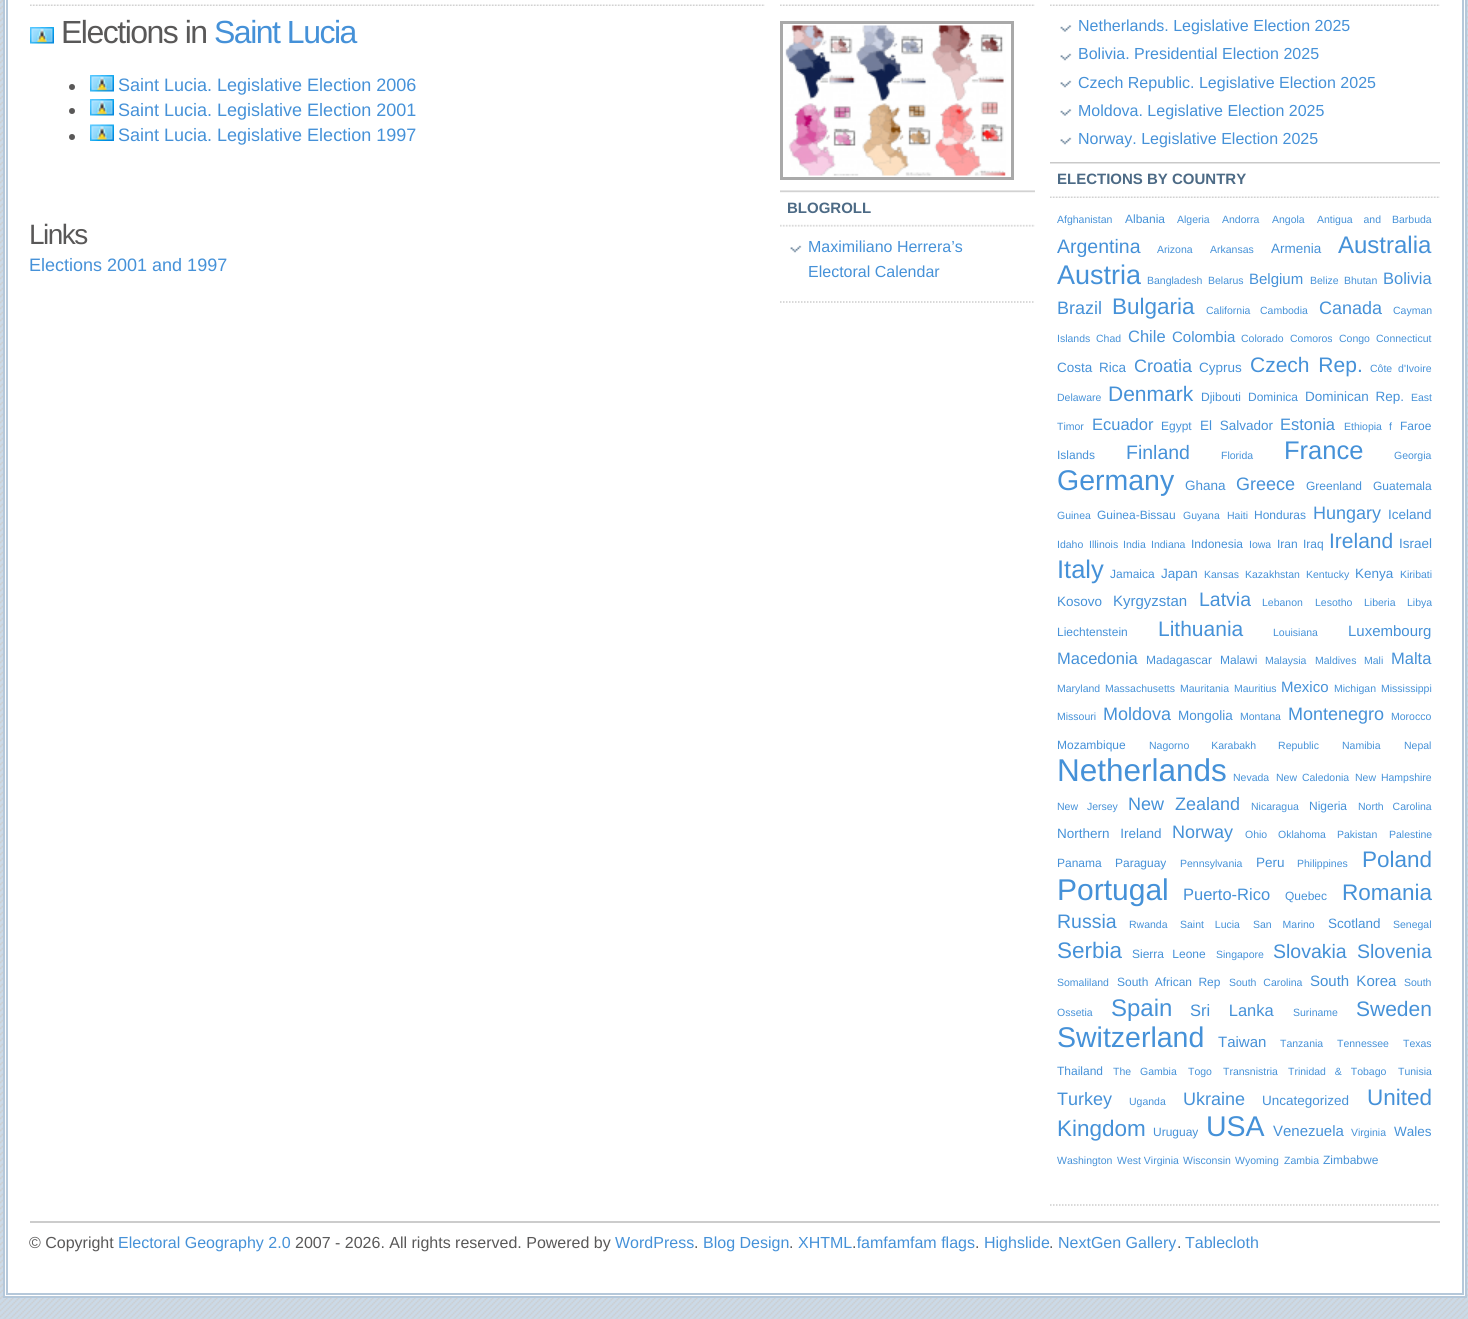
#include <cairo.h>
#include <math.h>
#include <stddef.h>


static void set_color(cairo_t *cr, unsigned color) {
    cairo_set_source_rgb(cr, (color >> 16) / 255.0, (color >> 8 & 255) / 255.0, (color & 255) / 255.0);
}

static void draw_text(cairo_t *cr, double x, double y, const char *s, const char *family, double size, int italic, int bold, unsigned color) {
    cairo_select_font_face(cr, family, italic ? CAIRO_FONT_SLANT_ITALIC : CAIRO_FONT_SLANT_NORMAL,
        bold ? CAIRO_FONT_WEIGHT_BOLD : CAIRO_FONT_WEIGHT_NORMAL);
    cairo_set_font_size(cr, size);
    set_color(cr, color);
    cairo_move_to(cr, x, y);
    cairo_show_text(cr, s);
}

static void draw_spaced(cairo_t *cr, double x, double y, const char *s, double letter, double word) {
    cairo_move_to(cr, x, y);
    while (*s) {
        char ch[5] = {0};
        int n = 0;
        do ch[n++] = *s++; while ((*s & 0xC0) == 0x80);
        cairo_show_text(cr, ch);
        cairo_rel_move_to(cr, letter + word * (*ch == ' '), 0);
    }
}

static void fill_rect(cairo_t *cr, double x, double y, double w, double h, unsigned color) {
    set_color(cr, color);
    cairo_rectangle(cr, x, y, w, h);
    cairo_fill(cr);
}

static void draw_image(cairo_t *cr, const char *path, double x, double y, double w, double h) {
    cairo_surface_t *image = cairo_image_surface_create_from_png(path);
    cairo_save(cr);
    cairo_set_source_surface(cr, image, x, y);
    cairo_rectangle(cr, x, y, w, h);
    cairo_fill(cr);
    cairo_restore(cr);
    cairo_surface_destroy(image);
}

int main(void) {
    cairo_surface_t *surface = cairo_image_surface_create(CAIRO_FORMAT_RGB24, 1468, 1319);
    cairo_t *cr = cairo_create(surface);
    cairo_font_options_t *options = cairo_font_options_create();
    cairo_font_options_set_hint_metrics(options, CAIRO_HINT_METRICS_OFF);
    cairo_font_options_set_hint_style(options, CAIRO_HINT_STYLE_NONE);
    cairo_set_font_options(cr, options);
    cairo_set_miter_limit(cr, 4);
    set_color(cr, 0xCBDAE8);
    cairo_paint(cr);
    draw_image(cr, "assets/img1.png", 0, 0, 1468, 1319);
    set_color(cr, 0xFFFFFF);
    cairo_rectangle(cr, 4, -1, 1462, 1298);
    cairo_fill_preserve(cr);
    set_color(cr, 0xB5C8DA);
    cairo_stroke(cr);
    cairo_rectangle(cr, 7, -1, 1456, 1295);
    cairo_stroke(cr);
    draw_image(cr, "assets/img2.png", 30, 4, 735, 2);
    draw_image(cr, "assets/img3.png", 30, 27, 24, 17);
    cairo_select_font_face(cr, "Liberation Sans", CAIRO_FONT_SLANT_NORMAL, CAIRO_FONT_WEIGHT_NORMAL);
    cairo_set_font_size(cr, 32);
    set_color(cr, 0x595858);
    draw_spaced(cr, 61, 43, "Elections in", -1.5, 0);
    set_color(cr, 0x4591D8);
    draw_spaced(cr, 214, 43, "Saint Lucia", -1.5, 0);
    set_color(cr, 0x595858);
    cairo_new_path(cr);
    cairo_arc(cr, 72, 87, 3, 0, 2 * M_PI);
    cairo_fill(cr);
    draw_image(cr, "assets/img3.png", 90, 75, 24, 17);
    draw_text(cr, 118, 91, "Saint Lucia. Legislative Election 2006", "Liberation Sans", 18, 0, 0, 0x4591D8);
    set_color(cr, 0x595858);
    cairo_new_path(cr);
    cairo_arc(cr, 72, 111, 3, 0, 2 * M_PI);
    cairo_fill(cr);
    draw_image(cr, "assets/img3.png", 90, 99, 24, 17);
    draw_text(cr, 118, 116, "Saint Lucia. Legislative Election 2001", "Liberation Sans", 18, 0, 0, 0x4591D8);
    set_color(cr, 0x595858);
    cairo_new_path(cr);
    cairo_arc(cr, 72, 137, 3, 0, 2 * M_PI);
    cairo_fill(cr);
    draw_image(cr, "assets/img4.png", 90, 124, 24, 17);
    draw_text(cr, 118, 141, "Saint Lucia. Legislative Election 1997", "Liberation Sans", 18, 0, 0, 0x4591D8);
    cairo_set_font_size(cr, 28);
    set_color(cr, 0x595858);
    draw_spaced(cr, 29, 244, "Links", -1.5, 0);
    draw_text(cr, 29, 271, "Elections 2001 and 1997", "Liberation Sans", 18, 0, 0, 0x4591D8);
    cairo_new_path(cr);
    cairo_move_to(cr, 780, 302);
    cairo_line_to(cr, 1035, 302);
    set_color(cr, 0xCCCCCC);
    cairo_set_line_width(cr, 1.5);
    cairo_set_dash(cr, (double[]){1.5, 1.5}, 2, 0);
    cairo_stroke(cr);
    draw_image(cr, "assets/img5.png", 780, 4, 255, 2);
    cairo_rectangle(cr, 781.5, 22.5, 231, 156);
    set_color(cr, 0xA9A9A9);
    cairo_set_line_width(cr, 3);
    cairo_set_dash(cr, NULL, 0, 0);
    cairo_stroke(cr);
    draw_image(cr, "assets/img6.png", 785, 25, 221, 151);
    draw_image(cr, "assets/img7.png", 780, 190, 255, 37);
    draw_text(cr, 787, 213, "BLOGROLL", "Liberation Sans", 15, 0, 1, 0x4C6A85);
    draw_image(cr, "assets/img8.png", 790, 245, 12, 8);
    draw_text(cr, 808, 252, "Maximiliano Herrera’s", "Liberation Sans", 16, 0, 0, 0x4591D8);
    draw_text(cr, 808, 277, "Electoral Calendar", "Liberation Sans", 16, 0, 0, 0x4591D8);
    cairo_new_path(cr);
    cairo_move_to(cr, 1050, 1205);
    cairo_line_to(cr, 1440, 1205);
    set_color(cr, 0xCCCCCC);
    cairo_set_line_width(cr, 1.5);
    cairo_set_dash(cr, (double[]){1.5, 1.5}, 2, 0);
    cairo_stroke(cr);
    draw_image(cr, "assets/img9.png", 1050, 4, 390, 2);
    draw_image(cr, "assets/img10.png", 1060, 25, 12, 7);
    draw_text(cr, 1078, 31, "Netherlands. Legislative Election 2025", "Liberation Sans", 16, 0, 0, 0x4591D8);
    draw_image(cr, "assets/img8.png", 1060, 53, 12, 8);
    draw_text(cr, 1078, 59, "Bolivia. Presidential Election 2025", "Liberation Sans", 16, 0, 0, 0x4591D8);
    draw_image(cr, "assets/img8.png", 1060, 80, 12, 8);
    draw_text(cr, 1078, 88, "Czech Republic. Legislative Election 2025", "Liberation Sans", 16, 0, 0, 0x4591D8);
    draw_image(cr, "assets/img10.png", 1060, 109, 12, 7);
    draw_text(cr, 1078, 116, "Moldova. Legislative Election 2025", "Liberation Sans", 16, 0, 0, 0x4591D8);
    draw_image(cr, "assets/img8.png", 1060, 137, 12, 8);
    draw_text(cr, 1078, 144, "Norway. Legislative Election 2025", "Liberation Sans", 16, 0, 0, 0x4591D8);
    draw_image(cr, "assets/img11.png", 1050, 162, 390, 36);
    draw_text(cr, 1057, 184, "ELECTIONS BY COUNTRY", "Liberation Sans", 15, 0, 1, 0x4C6A85);
    draw_text(cr, 1057, 223, "Afghanistan", "Liberation Sans", 10.5, 0, 0, 0x4591D8);
    draw_text(cr, 1125, 223, "Albania", "Liberation Sans", 12, 0, 0, 0x4591D8);
    draw_text(cr, 1177, 223, "Algeria", "Liberation Sans", 10.5, 0, 0, 0x4591D8);
    draw_text(cr, 1222, 223, "Andorra", "Liberation Sans", 10.5, 0, 0, 0x4591D8);
    draw_text(cr, 1272, 223, "Angola", "Liberation Sans", 10.5, 0, 0, 0x4591D8);
    draw_spaced(cr, 1317, 223, "Antigua and Barbudа", 0, 8);
    draw_text(cr, 1057, 253, "Argentina", "Liberation Sans", 19.5, 0, 0, 0x4591D8);
    draw_text(cr, 1157, 253, "Arizona", "Liberation Sans", 10.5, 0, 0, 0x4591D8);
    draw_text(cr, 1210, 253, "Arkansas", "Liberation Sans", 10.5, 0, 0, 0x4591D8);
    draw_text(cr, 1271, 253, "Armenia", "Liberation Sans", 13.5, 0, 0, 0x4591D8);
    draw_text(cr, 1338, 253, "Australia", "Liberation Sans", 24, 0, 0, 0x4591D8);
    draw_text(cr, 1057, 284, "Austria", "Liberation Sans", 27, 0, 0, 0x4591D8);
    draw_text(cr, 1147, 284, "Bangladesh", "Liberation Sans", 10.5, 0, 0, 0x4591D8);
    draw_text(cr, 1208, 284, "Belarus", "Liberation Sans", 10.5, 0, 0, 0x4591D8);
    draw_text(cr, 1249, 284, "Belgium", "Liberation Sans", 15, 0, 0, 0x4591D8);
    draw_text(cr, 1310, 284, "Belize", "Liberation Sans", 10.5, 0, 0, 0x4591D8);
    draw_text(cr, 1344, 284, "Bhutan", "Liberation Sans", 10.5, 0, 0, 0x4591D8);
    draw_text(cr, 1383, 284, "Bolivia", "Liberation Sans", 16.5, 0, 0, 0x4591D8);
    draw_text(cr, 1057, 314, "Brazil", "Liberation Sans", 18, 0, 0, 0x4591D8);
    draw_text(cr, 1112, 314, "Bulgaria", "Liberation Sans", 22.5, 0, 0, 0x4591D8);
    draw_text(cr, 1206, 314, "California", "Liberation Sans", 10.5, 0, 0, 0x4591D8);
    draw_text(cr, 1260, 314, "Cambodia", "Liberation Sans", 10.5, 0, 0, 0x4591D8);
    draw_text(cr, 1319, 314, "Canada", "Liberation Sans", 18, 0, 0, 0x4591D8);
    draw_text(cr, 1393, 314, "Cayman", "Liberation Sans", 10.5, 0, 0, 0x4591D8);
    draw_text(cr, 1057, 342, "Islands", "Liberation Sans", 10.5, 0, 0, 0x4591D8);
    draw_text(cr, 1096, 342, "Chad", "Liberation Sans", 10.5, 0, 0, 0x4591D8);
    draw_text(cr, 1128, 342, "Chile", "Liberation Sans", 16.5, 0, 0, 0x4591D8);
    draw_text(cr, 1172, 342, "Colombia", "Liberation Sans", 15, 0, 0, 0x4591D8);
    draw_text(cr, 1241, 342, "Colorado", "Liberation Sans", 10.5, 0, 0, 0x4591D8);
    draw_text(cr, 1290, 342, "Comoros", "Liberation Sans", 10.5, 0, 0, 0x4591D8);
    draw_text(cr, 1339, 342, "Congo", "Liberation Sans", 10.5, 0, 0, 0x4591D8);
    draw_text(cr, 1376, 342, "Connecticut", "Liberation Sans", 10.5, 0, 0, 0x4591D8);
    cairo_set_font_size(cr, 13.5);
    draw_spaced(cr, 1057, 372, "Costa Rica", 0, 3);
    draw_text(cr, 1134, 372, "Croatia", "Liberation Sans", 18, 0, 0, 0x4591D8);
    draw_text(cr, 1199, 372, "Cyprus", "Liberation Sans", 13.5, 0, 0, 0x4591D8);
    cairo_set_font_size(cr, 21);
    draw_spaced(cr, 1250, 372, "Czech Rep.", 0, 3);
    cairo_set_font_size(cr, 10.5);
    draw_spaced(cr, 1370, 372, "Côte d'Ivoire", 0, 3);
    draw_text(cr, 1057, 401, "Delaware", "Liberation Sans", 10.5, 0, 0, 0x4591D8);
    draw_text(cr, 1108, 401, "Denmark", "Liberation Sans", 21, 0, 0, 0x4591D8);
    draw_text(cr, 1201, 401, "Djibouti", "Liberation Sans", 12, 0, 0, 0x4591D8);
    draw_text(cr, 1248, 401, "Dominica", "Liberation Sans", 12, 0, 0, 0x4591D8);
    cairo_set_font_size(cr, 13.5);
    draw_spaced(cr, 1305, 401, "Dominican Rep.", 0, 3);
    draw_text(cr, 1411, 401, "East", "Liberation Sans", 10.5, 0, 0, 0x4591D8);
    draw_text(cr, 1057, 430, "Timor", "Liberation Sans", 10.5, 0, 0, 0x4591D8);
    draw_text(cr, 1092, 430, "Ecuador", "Liberation Sans", 16.5, 0, 0, 0x4591D8);
    draw_text(cr, 1161, 430, "Egypt", "Liberation Sans", 12, 0, 0, 0x4591D8);
    cairo_set_font_size(cr, 13.5);
    draw_spaced(cr, 1200, 430, "El Salvador", 0, 4);
    draw_text(cr, 1280, 430, "Estonia", "Liberation Sans", 16.5, 0, 0, 0x4591D8);
    draw_text(cr, 1344, 430, "Ethiopia", "Liberation Sans", 10.5, 0, 0, 0x4591D8);
    draw_text(cr, 1389, 430, "f", "Liberation Sans", 10.5, 0, 0, 0x4591D8);
    draw_text(cr, 1400, 430, "Faroe", "Liberation Sans", 12, 0, 0, 0x4591D8);
    draw_text(cr, 1057, 459, "Islands", "Liberation Sans", 12, 0, 0, 0x4591D8);
    draw_text(cr, 1126, 459, "Finland", "Liberation Sans", 19.5, 0, 0, 0x4591D8);
    draw_text(cr, 1221, 459, "Florida", "Liberation Sans", 10.5, 0, 0, 0x4591D8);
    draw_text(cr, 1284, 459, "France", "Liberation Sans", 25.5, 0, 0, 0x4591D8);
    draw_text(cr, 1394, 459, "Georgia", "Liberation Sans", 10.5, 0, 0, 0x4591D8);
    draw_text(cr, 1057, 490, "Germany", "Liberation Sans", 28.5, 0, 0, 0x4591D8);
    draw_text(cr, 1185, 490, "Ghana", "Liberation Sans", 13.5, 0, 0, 0x4591D8);
    draw_text(cr, 1236, 490, "Greece", "Liberation Sans", 18, 0, 0, 0x4591D8);
    draw_text(cr, 1306, 490, "Greenland", "Liberation Sans", 12, 0, 0, 0x4591D8);
    draw_text(cr, 1373, 490, "Guatemala", "Liberation Sans", 12, 0, 0, 0x4591D8);
    draw_text(cr, 1057, 519, "Guinea", "Liberation Sans", 10.5, 0, 0, 0x4591D8);
    draw_text(cr, 1097, 519, "Guinea-Bissau", "Liberation Sans", 12, 0, 0, 0x4591D8);
    draw_text(cr, 1183, 519, "Guyana", "Liberation Sans", 10.5, 0, 0, 0x4591D8);
    draw_text(cr, 1227, 519, "Haiti", "Liberation Sans", 10.5, 0, 0, 0x4591D8);
    draw_text(cr, 1254, 519, "Honduras", "Liberation Sans", 12, 0, 0, 0x4591D8);
    draw_text(cr, 1313, 519, "Hungary", "Liberation Sans", 18, 0, 0, 0x4591D8);
    draw_text(cr, 1388, 519, "Iceland", "Liberation Sans", 13.5, 0, 0, 0x4591D8);
    draw_text(cr, 1057, 548, "Idaho", "Liberation Sans", 10.5, 0, 0, 0x4591D8);
    draw_text(cr, 1089, 548, "Illinois", "Liberation Sans", 10.5, 0, 0, 0x4591D8);
    draw_text(cr, 1123, 548, "India", "Liberation Sans", 10.5, 0, 0, 0x4591D8);
    draw_text(cr, 1151, 548, "Indiana", "Liberation Sans", 10.5, 0, 0, 0x4591D8);
    draw_text(cr, 1191, 548, "Indonesia", "Liberation Sans", 12, 0, 0, 0x4591D8);
    draw_text(cr, 1249, 548, "Iowa", "Liberation Sans", 10.5, 0, 0, 0x4591D8);
    draw_text(cr, 1277, 548, "Iran", "Liberation Sans", 12, 0, 0, 0x4591D8);
    draw_text(cr, 1303, 548, "Iraq", "Liberation Sans", 12, 0, 0, 0x4591D8);
    draw_text(cr, 1329, 548, "Ireland", "Liberation Sans", 21, 0, 0, 0x4591D8);
    draw_text(cr, 1399, 548, "Israel", "Liberation Sans", 13.5, 0, 0, 0x4591D8);
    draw_text(cr, 1057, 578, "Italy", "Liberation Sans", 25.5, 0, 0, 0x4591D8);
    draw_text(cr, 1110, 578, "Jamaica", "Liberation Sans", 12, 0, 0, 0x4591D8);
    draw_text(cr, 1161, 578, "Japan", "Liberation Sans", 13.5, 0, 0, 0x4591D8);
    draw_text(cr, 1204, 578, "Kansas", "Liberation Sans", 10.5, 0, 0, 0x4591D8);
    draw_text(cr, 1245, 578, "Kazakhstan", "Liberation Sans", 10.5, 0, 0, 0x4591D8);
    draw_text(cr, 1306, 578, "Kentucky", "Liberation Sans", 10.5, 0, 0, 0x4591D8);
    draw_text(cr, 1355, 578, "Kenya", "Liberation Sans", 13.5, 0, 0, 0x4591D8);
    draw_text(cr, 1400, 578, "Kiribati", "Liberation Sans", 10.5, 0, 0, 0x4591D8);
    draw_text(cr, 1057, 606, "Kosovo", "Liberation Sans", 13.5, 0, 0, 0x4591D8);
    draw_text(cr, 1113, 606, "Kyrgyzstan", "Liberation Sans", 15, 0, 0, 0x4591D8);
    draw_text(cr, 1199, 606, "Latvia", "Liberation Sans", 19.5, 0, 0, 0x4591D8);
    draw_text(cr, 1262, 606, "Lebanon", "Liberation Sans", 10.5, 0, 0, 0x4591D8);
    draw_text(cr, 1315, 606, "Lesotho", "Liberation Sans", 10.5, 0, 0, 0x4591D8);
    draw_text(cr, 1364, 606, "Liberia", "Liberation Sans", 10.5, 0, 0, 0x4591D8);
    draw_text(cr, 1407, 606, "Libya", "Liberation Sans", 10.5, 0, 0, 0x4591D8);
    draw_text(cr, 1057, 636, "Liechtenstein", "Liberation Sans", 12, 0, 0, 0x4591D8);
    draw_text(cr, 1158, 636, "Lithuania", "Liberation Sans", 21, 0, 0, 0x4591D8);
    draw_text(cr, 1273, 636, "Louisiana", "Liberation Sans", 10.5, 0, 0, 0x4591D8);
    draw_text(cr, 1348, 636, "Luxembourg", "Liberation Sans", 15, 0, 0, 0x4591D8);
    draw_text(cr, 1057, 664, "Macedonia", "Liberation Sans", 16.5, 0, 0, 0x4591D8);
    draw_text(cr, 1146, 664, "Madagascar", "Liberation Sans", 12, 0, 0, 0x4591D8);
    draw_text(cr, 1220, 664, "Malawi", "Liberation Sans", 12, 0, 0, 0x4591D8);
    draw_text(cr, 1265, 664, "Malaysia", "Liberation Sans", 10.5, 0, 0, 0x4591D8);
    draw_text(cr, 1315, 664, "Maldives", "Liberation Sans", 10.5, 0, 0, 0x4591D8);
    draw_text(cr, 1364, 664, "Mali", "Liberation Sans", 10.5, 0, 0, 0x4591D8);
    draw_text(cr, 1391, 664, "Malta", "Liberation Sans", 16.5, 0, 0, 0x4591D8);
    draw_text(cr, 1057, 692, "Maryland", "Liberation Sans", 10.5, 0, 0, 0x4591D8);
    draw_text(cr, 1105, 692, "Massachusetts", "Liberation Sans", 10.5, 0, 0, 0x4591D8);
    draw_text(cr, 1180, 692, "Mauritania", "Liberation Sans", 10.5, 0, 0, 0x4591D8);
    draw_text(cr, 1234, 692, "Mauritius", "Liberation Sans", 10.5, 0, 0, 0x4591D8);
    draw_text(cr, 1281, 692, "Mexico", "Liberation Sans", 15, 0, 0, 0x4591D8);
    draw_text(cr, 1334, 692, "Michigan", "Liberation Sans", 10.5, 0, 0, 0x4591D8);
    draw_text(cr, 1381, 692, "Mississippi", "Liberation Sans", 10.5, 0, 0, 0x4591D8);
    draw_text(cr, 1057, 720, "Missouri", "Liberation Sans", 10.5, 0, 0, 0x4591D8);
    draw_text(cr, 1103, 720, "Moldova", "Liberation Sans", 18, 0, 0, 0x4591D8);
    draw_text(cr, 1178, 720, "Mongolia", "Liberation Sans", 13.5, 0, 0, 0x4591D8);
    draw_text(cr, 1240, 720, "Montana", "Liberation Sans", 10.5, 0, 0, 0x4591D8);
    draw_text(cr, 1288, 720, "Montenegro", "Liberation Sans", 18, 0, 0, 0x4591D8);
    draw_text(cr, 1391, 720, "Morocco", "Liberation Sans", 10.5, 0, 0, 0x4591D8);
    draw_text(cr, 1057, 749, "Mozambique", "Liberation Sans", 12, 0, 0, 0x4591D8);
    cairo_set_font_size(cr, 10.5);
    draw_spaced(cr, 1149, 749, "Nagorno Karabakh Republic", 0, 19);
    draw_text(cr, 1342, 749, "Namibia", "Liberation Sans", 10.5, 0, 0, 0x4591D8);
    draw_text(cr, 1404, 749, "Nepal", "Liberation Sans", 10.5, 0, 0, 0x4591D8);
    draw_text(cr, 1057, 781, "Netherlands", "Liberation Sans", 31.5, 0, 0, 0x4591D8);
    draw_text(cr, 1233, 781, "Nevada", "Liberation Sans", 10.5, 0, 0, 0x4591D8);
    draw_spaced(cr, 1276, 781, "New Caledonia", 0, 2);
    draw_spaced(cr, 1355, 781, "New Hampshire", 0, 2);
    draw_spaced(cr, 1057, 810, "New Jersey", 0, 6);
    cairo_set_font_size(cr, 18);
    draw_spaced(cr, 1128, 810, "New Zealand", 0, 6);
    draw_text(cr, 1251, 810, "Nicaragua", "Liberation Sans", 10.5, 0, 0, 0x4591D8);
    draw_text(cr, 1309, 810, "Nigeria", "Liberation Sans", 12, 0, 0, 0x4591D8);
    cairo_set_font_size(cr, 10.5);
    draw_spaced(cr, 1358, 810, "North Carolina", 0, 6);
    cairo_set_font_size(cr, 13.5);
    draw_spaced(cr, 1057, 838, "Northern Ireland", 0, 7);
    draw_text(cr, 1172, 838, "Norway", "Liberation Sans", 18, 0, 0, 0x4591D8);
    draw_text(cr, 1245, 838, "Ohio", "Liberation Sans", 10.5, 0, 0, 0x4591D8);
    draw_text(cr, 1278, 838, "Oklahoma", "Liberation Sans", 10.5, 0, 0, 0x4591D8);
    draw_text(cr, 1337, 838, "Pakistan", "Liberation Sans", 10.5, 0, 0, 0x4591D8);
    draw_text(cr, 1389, 838, "Palestine", "Liberation Sans", 10.5, 0, 0, 0x4591D8);
    draw_text(cr, 1057, 867, "Panama", "Liberation Sans", 12, 0, 0, 0x4591D8);
    draw_text(cr, 1115, 867, "Paraguay", "Liberation Sans", 12, 0, 0, 0x4591D8);
    draw_text(cr, 1180, 867, "Pennsylvania", "Liberation Sans", 10.5, 0, 0, 0x4591D8);
    draw_text(cr, 1256, 867, "Peru", "Liberation Sans", 13.5, 0, 0, 0x4591D8);
    draw_text(cr, 1297, 867, "Philippines", "Liberation Sans", 10.5, 0, 0, 0x4591D8);
    draw_text(cr, 1362, 867, "Poland", "Liberation Sans", 22.5, 0, 0, 0x4591D8);
    draw_text(cr, 1057, 900, "Portugal", "Liberation Sans", 30, 0, 0, 0x4591D8);
    draw_text(cr, 1183, 900, "Puerto-Rico", "Liberation Sans", 16.5, 0, 0, 0x4591D8);
    draw_text(cr, 1285, 900, "Quebec", "Liberation Sans", 12, 0, 0, 0x4591D8);
    draw_text(cr, 1342, 900, "Romania", "Liberation Sans", 22.5, 0, 0, 0x4591D8);
    draw_text(cr, 1057, 928, "Russia", "Liberation Sans", 19.5, 0, 0, 0x4591D8);
    draw_text(cr, 1129, 928, "Rwanda", "Liberation Sans", 10.5, 0, 0, 0x4591D8);
    draw_spaced(cr, 1180, 928, "Saint Lucia", 0, 8);
    draw_spaced(cr, 1253, 928, "San Marino", 0, 8);
    draw_text(cr, 1328, 928, "Scotland", "Liberation Sans", 13.5, 0, 0, 0x4591D8);
    draw_text(cr, 1393, 928, "Senegal", "Liberation Sans", 10.5, 0, 0, 0x4591D8);
    draw_text(cr, 1057, 958, "Serbia", "Liberation Sans", 22.5, 0, 0, 0x4591D8);
    cairo_set_font_size(cr, 12);
    draw_spaced(cr, 1132, 958, "Sierra Leone", 0, 5);
    draw_text(cr, 1216, 958, "Singapore", "Liberation Sans", 10.5, 0, 0, 0x4591D8);
    draw_text(cr, 1273, 958, "Slovakia", "Liberation Sans", 19.5, 0, 0, 0x4591D8);
    draw_text(cr, 1357, 958, "Slovenia", "Liberation Sans", 19.5, 0, 0, 0x4591D8);
    draw_text(cr, 1057, 986, "Somaliland", "Liberation Sans", 10.5, 0, 0, 0x4591D8);
    cairo_set_font_size(cr, 12);
    draw_spaced(cr, 1117, 986, "South African Rep", 0, 3);
    cairo_set_font_size(cr, 10.5);
    draw_spaced(cr, 1229, 986, "South Carolina", 0, 4);
    cairo_set_font_size(cr, 15);
    draw_spaced(cr, 1310, 986, "South Korea", 0, 3);
    draw_text(cr, 1404, 986, "South", "Liberation Sans", 10.5, 0, 0, 0x4591D8);
    draw_text(cr, 1057, 1016, "Ossetia", "Liberation Sans", 10.5, 0, 0, 0x4591D8);
    draw_text(cr, 1111, 1016, "Spain", "Liberation Sans", 24, 0, 0, 0x4591D8);
    cairo_set_font_size(cr, 16.5);
    draw_spaced(cr, 1190, 1016, "Sri Lanka", 0, 14);
    draw_text(cr, 1293, 1016, "Suriname", "Liberation Sans", 10.5, 0, 0, 0x4591D8);
    draw_text(cr, 1356, 1016, "Sweden", "Liberation Sans", 21, 0, 0, 0x4591D8);
    draw_text(cr, 1057, 1047, "Switzerland", "Liberation Sans", 28.5, 0, 0, 0x4591D8);
    draw_text(cr, 1218, 1047, "Taiwan", "Liberation Sans", 15, 0, 0, 0x4591D8);
    draw_text(cr, 1280, 1047, "Tanzania", "Liberation Sans", 10.5, 0, 0, 0x4591D8);
    draw_text(cr, 1337, 1047, "Tennessee", "Liberation Sans", 10.5, 0, 0, 0x4591D8);
    draw_text(cr, 1403, 1047, "Texas", "Liberation Sans", 10.5, 0, 0, 0x4591D8);
    draw_text(cr, 1057, 1075, "Thailand", "Liberation Sans", 12, 0, 0, 0x4591D8);
    cairo_set_font_size(cr, 10.5);
    draw_spaced(cr, 1113, 1075, "The Gambia", 0, 6);
    draw_text(cr, 1188, 1075, "Togo", "Liberation Sans", 10.5, 0, 0, 0x4591D8);
    draw_text(cr, 1223, 1075, "Transnistria", "Liberation Sans", 10.5, 0, 0, 0x4591D8);
    draw_spaced(cr, 1288, 1075, "Trinidad & Tobago", 0, 6);
    draw_text(cr, 1398, 1075, "Tunisia", "Liberation Sans", 10.5, 0, 0, 0x4591D8);
    draw_text(cr, 1057, 1105, "Turkey", "Liberation Sans", 18, 0, 0, 0x4591D8);
    draw_text(cr, 1129, 1105, "Uganda", "Liberation Sans", 10.5, 0, 0, 0x4591D8);
    draw_text(cr, 1183, 1105, "Ukraine", "Liberation Sans", 18, 0, 0, 0x4591D8);
    draw_text(cr, 1262, 1105, "Uncategorized", "Liberation Sans", 13.5, 0, 0, 0x4591D8);
    draw_text(cr, 1367, 1105, "United", "Liberation Sans", 22.5, 0, 0, 0x4591D8);
    draw_text(cr, 1057, 1136, "Kingdom", "Liberation Sans", 22.5, 0, 0, 0x4591D8);
    draw_text(cr, 1153, 1136, "Uruguay", "Liberation Sans", 12, 0, 0, 0x4591D8);
    draw_text(cr, 1206, 1136, "USA", "Liberation Sans", 28.5, 0, 0, 0x4591D8);
    draw_text(cr, 1273, 1136, "Venezuela", "Liberation Sans", 15, 0, 0, 0x4591D8);
    draw_text(cr, 1351, 1136, "Virginia", "Liberation Sans", 10.5, 0, 0, 0x4591D8);
    draw_text(cr, 1394, 1136, "Wales", "Liberation Sans", 13.5, 0, 0, 0x4591D8);
    draw_text(cr, 1057, 1164, "Washington", "Liberation Sans", 10.5, 0, 0, 0x4591D8);
    draw_text(cr, 1117, 1164, "West Virginia", "Liberation Sans", 10.5, 0, 0, 0x4591D8);
    draw_text(cr, 1183, 1164, "Wisconsin", "Liberation Sans", 10.5, 0, 0, 0x4591D8);
    draw_text(cr, 1235, 1164, "Wyoming", "Liberation Sans", 10.5, 0, 0, 0x4591D8);
    draw_text(cr, 1284, 1164, "Zambia", "Liberation Sans", 10.5, 0, 0, 0x4591D8);
    draw_text(cr, 1323, 1164, "Zimbabwe", "Liberation Sans", 12, 0, 0, 0x4591D8);
    fill_rect(cr, 30, 1221, 1410, 2, 0xCCCCCC);
    draw_text(cr, 29, 1248, "© Copyright", "Liberation Sans", 16, 0, 0, 0x595858);
    draw_text(cr, 118, 1248, "Electoral Geography 2.0", "Liberation Sans", 16, 0, 0, 0x4591D8);
    draw_text(cr, 295, 1248, "2007 - 2026. All rights reserved. Powered by", "Liberation Sans", 16, 0, 0, 0x595858);
    draw_text(cr, 615, 1248, "WordPress", "Liberation Sans", 16, 0, 0, 0x4591D8);
    draw_text(cr, 694, 1248, ".", "Liberation Sans", 16, 0, 0, 0x595858);
    draw_text(cr, 703, 1248, "Blog Design", "Liberation Sans", 16, 0, 0, 0x4591D8);
    draw_text(cr, 789, 1248, ".", "Liberation Sans", 16, 0, 0, 0x595858);
    draw_text(cr, 798, 1248, "XHTML famfamfam flags", "Liberation Sans", 16, 0, 0, 0x4591D8);
    draw_text(cr, 984, 1248, "Highslide", "Liberation Sans", 16, 0, 0, 0x4591D8);
    draw_text(cr, 1058, 1248, "NextGen Gallery", "Liberation Sans", 16, 0, 0, 0x4591D8);
    draw_text(cr, 1185, 1248, "Tablecloth", "Liberation Sans", 16, 0, 0, 0x4591D8);
    draw_text(cr, 852, 1248, ".", "Liberation Sans", 16, 0, 0, 0x595858);
    draw_text(cr, 975, 1248, ".", "Liberation Sans", 16, 0, 0, 0x595858);
    draw_text(cr, 1049, 1248, ".", "Liberation Sans", 16, 0, 0, 0x595858);
    draw_text(cr, 1177, 1248, ".", "Liberation Sans", 16, 0, 0, 0x595858);
    cairo_surface_write_to_png(surface, "output.png");
    cairo_font_options_destroy(options);
    cairo_destroy(cr);
    cairo_surface_destroy(surface);
    return 0;
}
